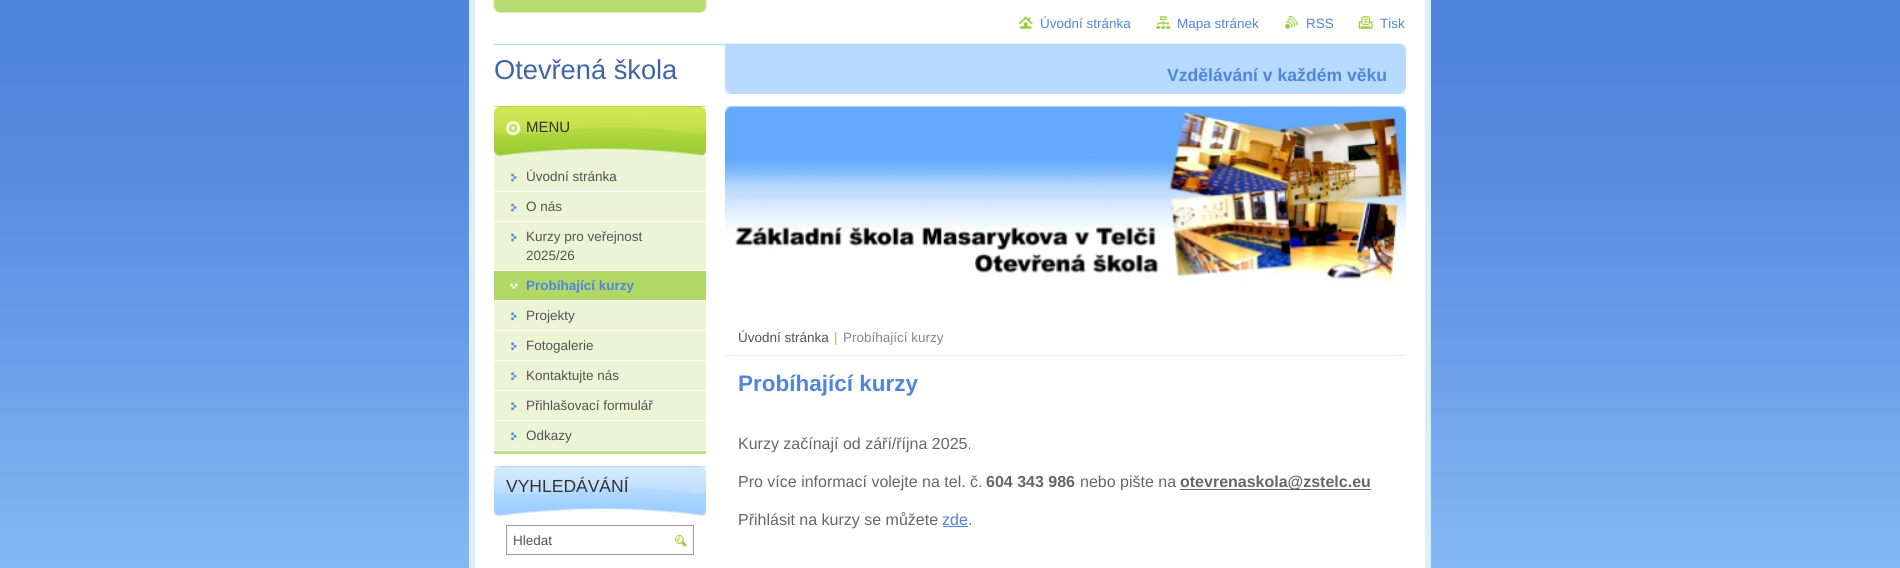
#include <cairo.h>
#include <math.h>
#include <stddef.h>


static void set_color(cairo_t *cr, unsigned color) {
    cairo_set_source_rgb(cr, (color >> 16) / 255.0, (color >> 8 & 255) / 255.0, (color & 255) / 255.0);
}

static void draw_text(cairo_t *cr, double x, double y, const char *s, const char *family, double size, int italic, int bold, unsigned color) {
    cairo_select_font_face(cr, family, italic ? CAIRO_FONT_SLANT_ITALIC : CAIRO_FONT_SLANT_NORMAL,
        bold ? CAIRO_FONT_WEIGHT_BOLD : CAIRO_FONT_WEIGHT_NORMAL);
    cairo_set_font_size(cr, size);
    set_color(cr, color);
    cairo_move_to(cr, x, y);
    cairo_show_text(cr, s);
}

static void fill_rect(cairo_t *cr, double x, double y, double w, double h, unsigned color) {
    set_color(cr, color);
    cairo_rectangle(cr, x, y, w, h);
    cairo_fill(cr);
}

static void draw_image(cairo_t *cr, const char *path, double x, double y, double w, double h) {
    cairo_surface_t *image = cairo_image_surface_create_from_png(path);
    cairo_save(cr);
    cairo_set_source_surface(cr, image, x, y);
    cairo_rectangle(cr, x, y, w, h);
    cairo_fill(cr);
    cairo_restore(cr);
    cairo_surface_destroy(image);
}

int main(void) {
    cairo_surface_t *surface = cairo_image_surface_create(CAIRO_FORMAT_RGB24, 1900, 568);
    cairo_t *cr = cairo_create(surface);
    cairo_font_options_t *options = cairo_font_options_create();
    cairo_font_options_set_hint_metrics(options, CAIRO_HINT_METRICS_OFF);
    cairo_font_options_set_hint_style(options, CAIRO_HINT_STYLE_NONE);
    cairo_set_font_options(cr, options);
    cairo_set_miter_limit(cr, 4);
    set_color(cr, 0xFFFFFF);
    cairo_paint(cr);
    draw_image(cr, "assets/img1.png", 0, 0, 1900, 568);
    fill_rect(cr, 475, 0, 950, 568, 0xFFFFFF);
    draw_image(cr, "assets/img2.png", 493, 0, 214, 13);
    fill_rect(cr, 1425, 0, 6, 568, 0xDBEDFF);
    fill_rect(cr, 469, 0, 6, 568, 0xDBEDFF);
    draw_image(cr, "assets/img3.png", 1018, 16, 15, 13);
    draw_text(cr, 1040, 28, "Úvodní stránka", "Liberation Sans", 13.5, 0, 0, 0x5184DB);
    draw_image(cr, "assets/img4.png", 1156, 16, 14, 13);
    draw_text(cr, 1177, 28, "Mapa stránek", "Liberation Sans", 13.5, 0, 0, 0x5184DB);
    draw_image(cr, "assets/img5.png", 1285, 16, 13, 13);
    draw_text(cr, 1306, 28, "RSS", "Liberation Sans", 13.5, 0, 0, 0x5184DB);
    draw_image(cr, "assets/img6.png", 1358, 16, 15, 13);
    draw_text(cr, 1380, 28, "Tisk", "Liberation Sans", 13.5, 0, 0, 0x5184DB);
    draw_image(cr, "assets/img7.png", 493, 43, 914, 9);
    draw_text(cr, 494, 79, "Otevřená škola", "Liberation Sans", 27.25, 0, 0, 0x3E65A8);
    fill_rect(cr, 725, 51, 681, 43, 0xB7DBFF);
    draw_image(cr, "assets/img8.png", 725, 85, 682, 9);
    draw_text(cr, 1167, 81, "Vzdělávání v každém věku", "Liberation Sans", 17.6, 0, 1, 0x5184DB);
    fill_rect(cr, 494, 451, 212, 3, 0xC2E084);
    fill_rect(cr, 494, 156, 212, 294, 0xEBF5D6);
    fill_rect(cr, 494, 106, 212, 43, 0x9FCF36);
    draw_image(cr, "assets/img9.png", 493, 106, 214, 43);
    draw_image(cr, "assets/img10.png", 493, 148, 214, 9);
    draw_text(cr, 526, 132, "MENU", "Liberation Sans", 15, 0, 0, 0x333333);
    draw_image(cr, "assets/img11.png", 511, 173, 6, 9);
    fill_rect(cr, 494, 191, 212, 1, 0xFFFFFF);
    draw_text(cr, 526, 181, "Úvodní stránka", "Liberation Sans", 13.5, 0, 0, 0x535353);
    draw_image(cr, "assets/img11.png", 511, 203, 6, 9);
    fill_rect(cr, 494, 221, 212, 1, 0xFFFFFF);
    draw_text(cr, 526, 211, "O nás", "Liberation Sans", 13.5, 0, 0, 0x535353);
    draw_image(cr, "assets/img11.png", 511, 233, 6, 9);
    fill_rect(cr, 494, 270, 212, 1, 0xFFFFFF);
    draw_text(cr, 526, 241, "Kurzy pro veřejnost", "Liberation Sans", 13.5, 0, 0, 0x535353);
    draw_text(cr, 526, 260, "2025/26", "Liberation Sans", 13.5, 0, 0, 0x535353);
    fill_rect(cr, 494, 271, 212, 29, 0xB1D864);
    draw_image(cr, "assets/img12.png", 509, 283, 9, 6);
    fill_rect(cr, 494, 300, 212, 1, 0xFFFFFF);
    draw_text(cr, 526, 290, "Probíhající kurzy", "Liberation Sans", 13.5, 0, 1, 0x5184DB);
    draw_image(cr, "assets/img13.png", 511, 312, 6, 9);
    fill_rect(cr, 494, 330, 212, 1, 0xFFFFFF);
    draw_text(cr, 526, 320, "Projekty", "Liberation Sans", 13.5, 0, 0, 0x535353);
    draw_image(cr, "assets/img13.png", 511, 342, 6, 9);
    fill_rect(cr, 494, 360, 212, 1, 0xFFFFFF);
    draw_text(cr, 526, 350, "Fotogalerie", "Liberation Sans", 13.5, 0, 0, 0x535353);
    draw_image(cr, "assets/img13.png", 511, 372, 6, 9);
    fill_rect(cr, 494, 390, 212, 1, 0xFFFFFF);
    draw_text(cr, 526, 380, "Kontaktujte nás", "Liberation Sans", 13.5, 0, 0, 0x535353);
    draw_image(cr, "assets/img13.png", 511, 402, 6, 9);
    fill_rect(cr, 494, 420, 212, 1, 0xFFFFFF);
    draw_text(cr, 526, 410, "Přihlašovací formulář", "Liberation Sans", 13.5, 0, 0, 0x535353);
    draw_image(cr, "assets/img13.png", 511, 432, 6, 9);
    draw_text(cr, 526, 440, "Odkazy", "Liberation Sans", 13.5, 0, 0, 0x535353);
    fill_rect(cr, 494, 466, 212, 43, 0x9FCFFF);
    draw_image(cr, "assets/img14.png", 493, 466, 214, 43);
    draw_image(cr, "assets/img15.png", 493, 508, 214, 9);
    draw_text(cr, 506, 492, "VYHLEDÁVÁNÍ", "Liberation Sans", 17.5, 0, 0, 0x333333);
    cairo_rectangle(cr, 506.5, 525.5, 187, 29);
    set_color(cr, 0x999999);
    cairo_set_line_width(cr, 1);
    cairo_stroke(cr);
    draw_text(cr, 513, 545, "Hledat", "Liberation Sans", 13.5, 0, 0, 0x535353);
    draw_image(cr, "assets/img16.png", 674, 534, 13, 13);
    draw_image(cr, "assets/img17.png", 725, 106, 682, 178);
    draw_image(cr, "assets/img18.png", 725, 106, 681, 7);
    fill_rect(cr, 725, 355, 681, 1, 0xDBEDFF);
    draw_text(cr, 738, 342, "Úvodní stránka", "Liberation Sans", 13.5, 0, 0, 0x535353);
    draw_text(cr, 834, 342, "|", "Liberation Sans", 13.5, 0, 0, 0x99CC33);
    draw_text(cr, 843, 342, "Probíhající kurzy", "Liberation Sans", 13.5, 0, 0, 0x878787);
    draw_text(cr, 738, 391, "Probíhající kurzy", "Liberation Sans", 22.5, 0, 1, 0x5184DB);
    draw_text(cr, 738, 449, "Kurzy začínají od září/října 2025.", "Liberation Sans", 16, 0, 0, 0x666666);
    draw_text(cr, 738, 487, "Pro více informací volejte na tel. č.", "Liberation Sans", 16, 0, 0, 0x666666);
    draw_text(cr, 986, 487, "604 343 986", "Liberation Sans", 16, 0, 1, 0x666666);
    draw_text(cr, 1080, 487, "nebo pište na", "Liberation Sans", 16, 0, 0, 0x666666);
    fill_rect(cr, 1180, 489, 191, 1, 0x666666);
    draw_text(cr, 1180, 487, "otevrenaskola@zstelc.eu", "Liberation Sans", 16, 0, 1, 0x666666);
    draw_text(cr, 738, 525, "Přihlásit na kurzy se můžete", "Liberation Sans", 16, 0, 0, 0x666666);
    draw_text(cr, 942, 525, "zde", "Liberation Sans", 16, 0, 0, 0x5184DB);
    fill_rect(cr, 943, 526, 25, 1, 0x5184DB);
    draw_text(cr, 968, 525, ".", "Liberation Sans", 16, 0, 0, 0x666666);
    cairo_surface_write_to_png(surface, "output.png");
    cairo_font_options_destroy(options);
    cairo_destroy(cr);
    cairo_surface_destroy(surface);
    return 0;
}
